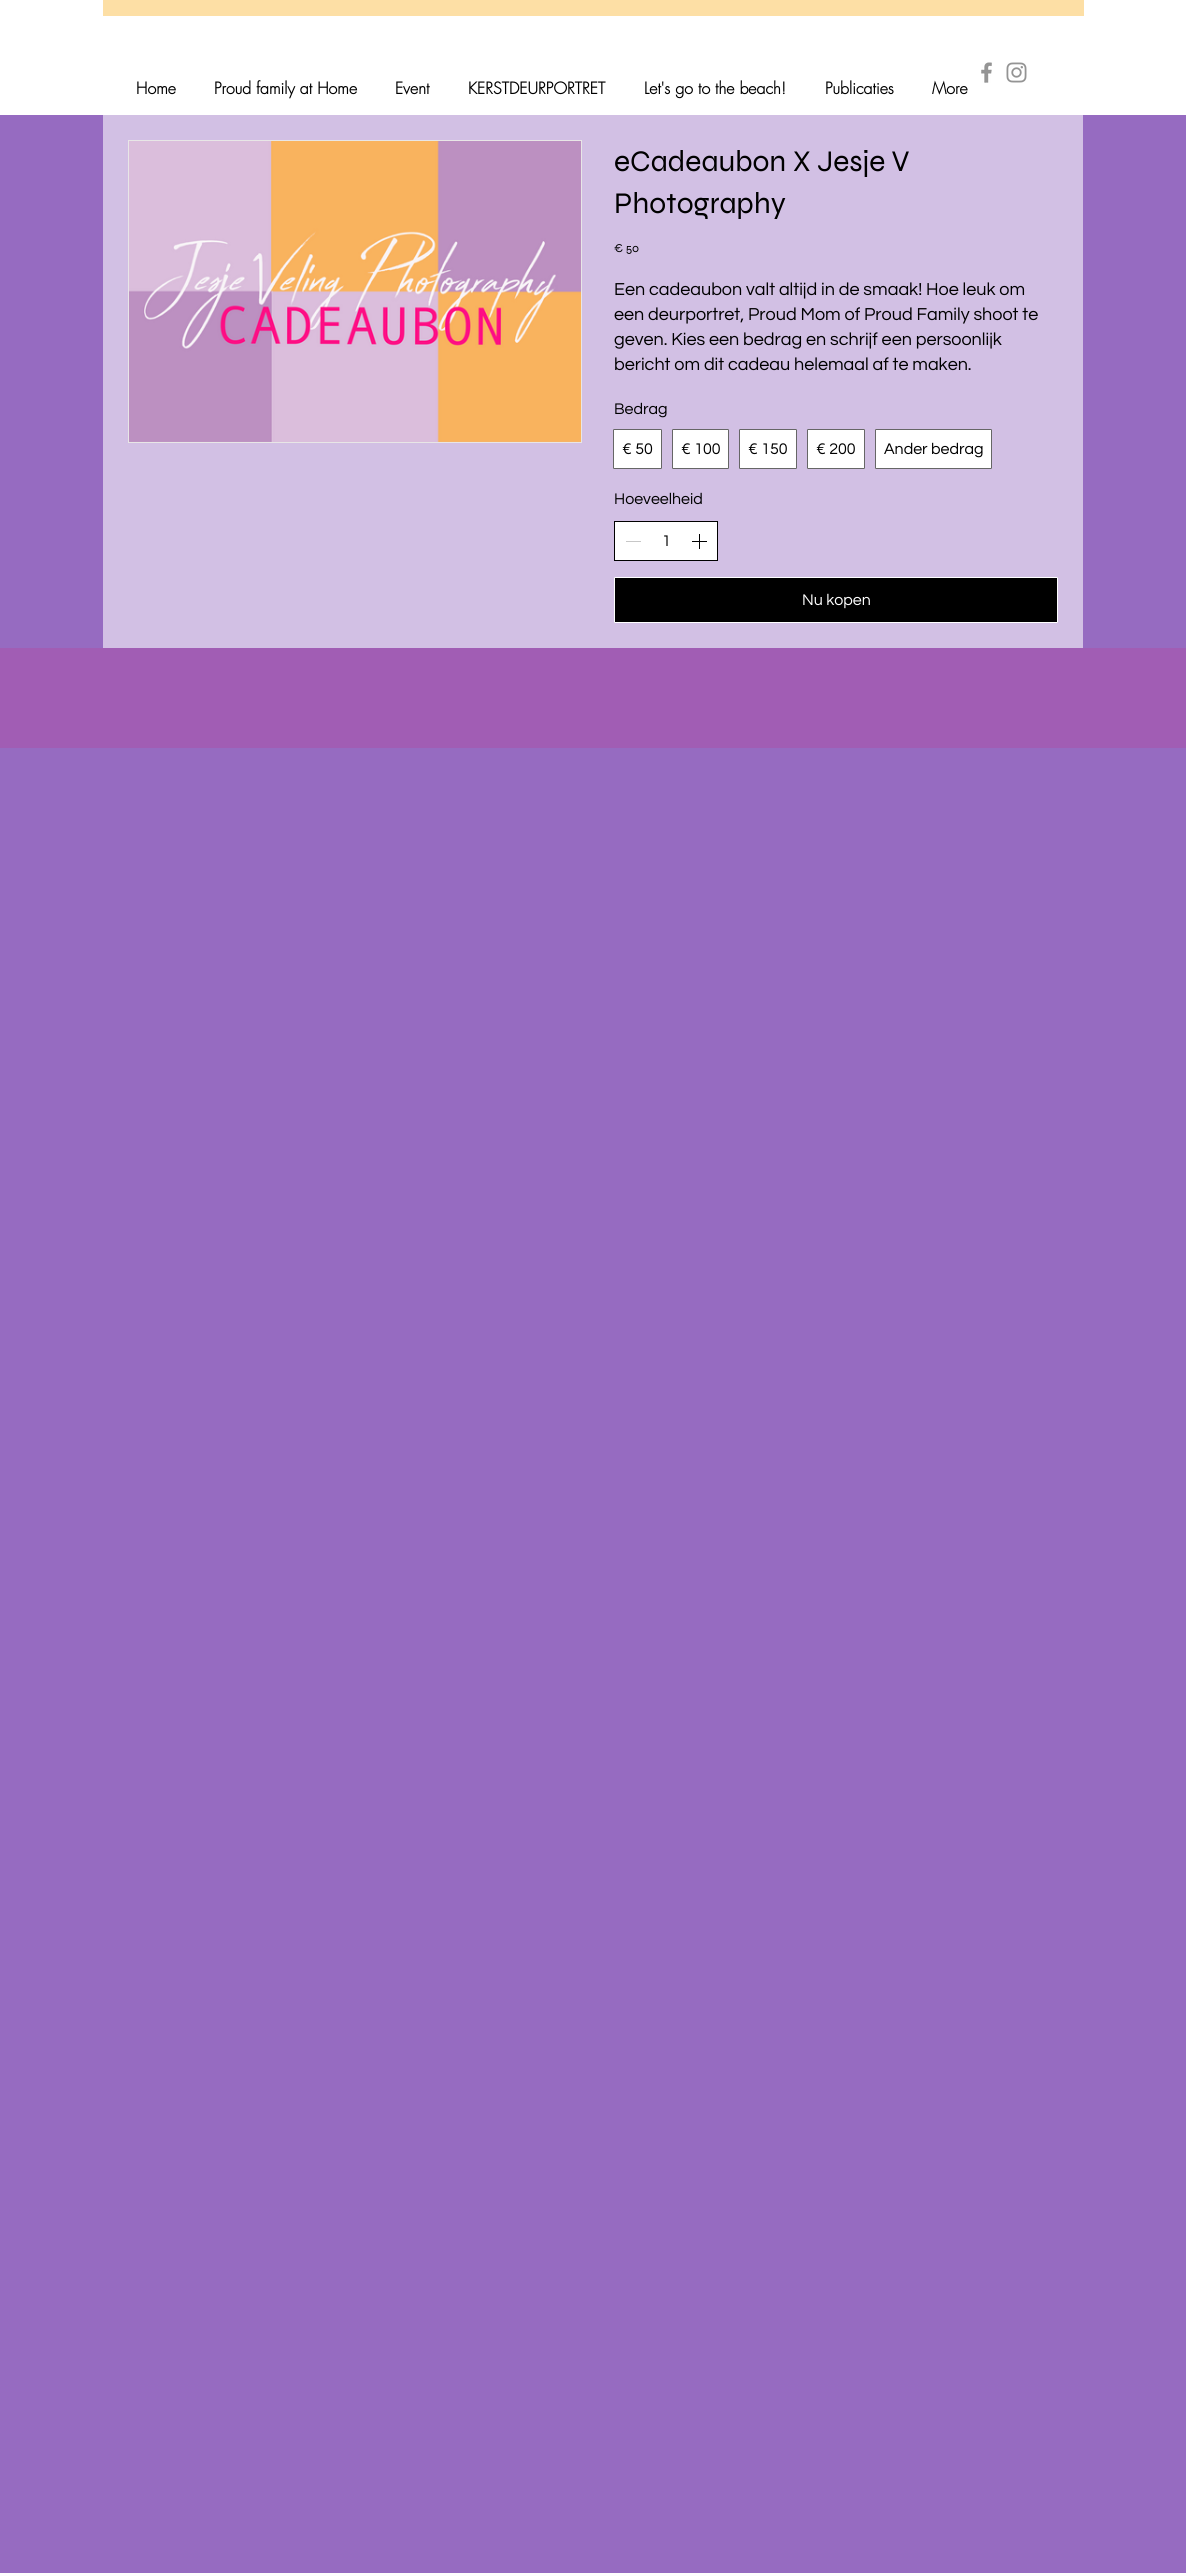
#include <cairo.h>
#include <math.h>
#include <stddef.h>


static void set_color(cairo_t *cr, unsigned color) {
    cairo_set_source_rgb(cr, (color >> 16) / 255.0, (color >> 8 & 255) / 255.0, (color & 255) / 255.0);
}

static void draw_text(cairo_t *cr, double x, double y, const char *s, const char *family, double size, int italic, int bold, unsigned color) {
    cairo_select_font_face(cr, family, italic ? CAIRO_FONT_SLANT_ITALIC : CAIRO_FONT_SLANT_NORMAL,
        bold ? CAIRO_FONT_WEIGHT_BOLD : CAIRO_FONT_WEIGHT_NORMAL);
    cairo_set_font_size(cr, size);
    set_color(cr, color);
    cairo_move_to(cr, x, y);
    cairo_show_text(cr, s);
}

static void fill_rect(cairo_t *cr, double x, double y, double w, double h, unsigned color) {
    set_color(cr, color);
    cairo_rectangle(cr, x, y, w, h);
    cairo_fill(cr);
}

static void rounded_rect(cairo_t *cr, double x, double y, double w, double h, double r) {
    cairo_new_sub_path(cr);
    cairo_arc(cr, x + w - r, y + h - r, r, 0, M_PI / 2);
    cairo_arc(cr, x + r, y + h - r, r, M_PI / 2, M_PI);
    cairo_arc(cr, x + r, y + r, r, M_PI, 1.5 * M_PI);
    cairo_arc(cr, x + w - r, y + r, r, 1.5 * M_PI, 2 * M_PI);
    cairo_close_path(cr);
}

static void draw_image(cairo_t *cr, const char *path, double x, double y, double w, double h) {
    cairo_surface_t *image = cairo_image_surface_create_from_png(path);
    cairo_save(cr);
    cairo_set_source_surface(cr, image, x, y);
    cairo_rectangle(cr, x, y, w, h);
    cairo_fill(cr);
    cairo_restore(cr);
    cairo_surface_destroy(image);
}

int main(void) {
    cairo_surface_t *surface = cairo_image_surface_create(CAIRO_FORMAT_RGB24, 1186, 2573);
    cairo_t *cr = cairo_create(surface);
    cairo_font_options_t *options = cairo_font_options_create();
    cairo_font_options_set_hint_metrics(options, CAIRO_HINT_METRICS_OFF);
    cairo_font_options_set_hint_style(options, CAIRO_HINT_STYLE_NONE);
    cairo_set_font_options(cr, options);
    cairo_set_miter_limit(cr, 4);
    set_color(cr, 0x966BC1);
    cairo_paint(cr);
    fill_rect(cr, 0, 0, 1186, 115, 0xFFFFFF);
    fill_rect(cr, 103, 0, 981, 16, 0xFDDFA5);
    draw_image(cr, "assets/img1.png", 981, 62, 11, 21);
    draw_image(cr, "assets/img2.png", 1006, 62, 21, 21);
    draw_text(cr, 136, 94, "Home", "futura", 16, 0, 1, 0x000000);
    draw_text(cr, 214, 94, "Proud family at Home", "futura", 16, 0, 1, 0x000000);
    draw_text(cr, 395, 94, "Event", "futura", 16, 0, 1, 0x000000);
    draw_text(cr, 468, 94, "KERSTDEURPORTRET", "futura", 16, 0, 1, 0x000000);
    draw_text(cr, 644, 94, "Let's go to the beach!", "futura", 16, 0, 1, 0x000000);
    draw_text(cr, 825, 94, "Publicaties", "futura", 16, 0, 1, 0x000000);
    draw_text(cr, 932, 94, "More", "futura", 16, 0, 1, 0x000000);
    fill_rect(cr, 103, 115, 980, 533, 0xD2C0E4);
    cairo_rectangle(cr, 128.5, 140.5, 453, 302);
    set_color(cr, 0xE8E6E6);
    cairo_set_line_width(cr, 1);
    cairo_stroke(cr);
    draw_image(cr, "assets/img3.png", 129, 141, 452, 301);
    draw_text(cr, 614, 171, "eCadeaubon X Jesje V", "Syne", 30, 0, 0, 0x000000);
    draw_text(cr, 614, 213, "Photography", "Syne", 30, 0, 0, 0x000000);
    draw_text(cr, 614, 252, "€ 50", "Syne", 12, 0, 0, 0x000000);
    draw_text(cr, 614, 295, "Een cadeaubon valt altijd in de smaak! Hoe leuk om", "Questrial", 18, 0, 0, 0x000000);
    draw_text(cr, 614, 320, "een deurportret, Proud Mom of Proud Family shoot te", "Questrial", 18, 0, 0, 0x000000);
    draw_text(cr, 614, 345, "geven. Kies een bedrag en schrijf een persoonlijk", "Questrial", 18, 0, 0, 0x000000);
    draw_text(cr, 614, 370, "bericht om dit cadeau helemaal af te maken.", "Questrial", 18, 0, 0, 0x000000);
    draw_text(cr, 614, 414, "Bedrag", "Questrial", 16, 0, 0, 0x000000);
    set_color(cr, 0xFFFFFF);
    rounded_rect(cr, 613, 429, 49, 40, 1);
    cairo_fill(cr);
    rounded_rect(cr, 613.5, 429.5, 48, 39, 0.5);
    cairo_set_source_rgba(cr, 0, 0, 0, 0.6);
    cairo_stroke(cr);
    draw_text(cr, 622, 454, "€ 50", "Questrial", 16, 0, 0, 0x000000);
    set_color(cr, 0xFFFFFF);
    rounded_rect(cr, 672, 429, 57, 40, 1);
    cairo_fill(cr);
    rounded_rect(cr, 672.5, 429.5, 56, 39, 0.5);
    cairo_set_source_rgba(cr, 0, 0, 0, 0.6);
    cairo_stroke(cr);
    draw_text(cr, 681, 454, "€ 100", "Questrial", 16, 0, 0, 0x000000);
    set_color(cr, 0xFFFFFF);
    rounded_rect(cr, 739, 429, 58, 40, 1);
    cairo_fill(cr);
    rounded_rect(cr, 739.5, 429.5, 57, 39, 0.5);
    cairo_set_source_rgba(cr, 0, 0, 0, 0.6);
    cairo_stroke(cr);
    draw_text(cr, 748, 454, "€ 150", "Questrial", 16, 0, 0, 0x000000);
    set_color(cr, 0xFFFFFF);
    rounded_rect(cr, 807, 429, 58, 40, 1);
    cairo_fill(cr);
    rounded_rect(cr, 807.5, 429.5, 57, 39, 0.5);
    cairo_set_source_rgba(cr, 0, 0, 0, 0.6);
    cairo_stroke(cr);
    draw_text(cr, 816, 454, "€ 200", "Questrial", 16, 0, 0, 0x000000);
    set_color(cr, 0xFFFFFF);
    rounded_rect(cr, 875, 429, 117, 40, 1);
    cairo_fill(cr);
    rounded_rect(cr, 875.5, 429.5, 116, 39, 0.5);
    cairo_set_source_rgba(cr, 0, 0, 0, 0.6);
    cairo_stroke(cr);
    draw_text(cr, 884, 454, "Ander bedrag", "Questrial", 16, 0, 0, 0x000000);
    draw_text(cr, 614, 504, "Hoeveelheid", "Questrial", 16, 0, 0, 0x000000);
    set_color(cr, 0xFFFFFF);
    cairo_rectangle(cr, 614.5, 521.5, 103, 39);
    cairo_fill_preserve(cr);
    set_color(cr, 0x000000);
    cairo_stroke(cr);
    fill_rect(cr, 626, 541, 15, 1, 0xC7C7C7);
    draw_text(cr, 662, 546, "1", "Questrial", 16, 0, 0, 0x000000);
    draw_image(cr, "assets/img4.png", 692, 534, 15, 15);
    rounded_rect(cr, 614.5, 577.5, 443, 45, 0.5);
    cairo_fill_preserve(cr);
    set_color(cr, 0xFFFFFF);
    cairo_stroke(cr);
    draw_text(cr, 802, 605, "Nu kopen", "Questrial", 16, 0, 0, 0xFFFFFF);
    fill_rect(cr, 0, 648, 1186, 100, 0xA15DB4);
    cairo_surface_write_to_png(surface, "output.png");
    cairo_font_options_destroy(options);
    cairo_destroy(cr);
    cairo_surface_destroy(surface);
    return 0;
}
